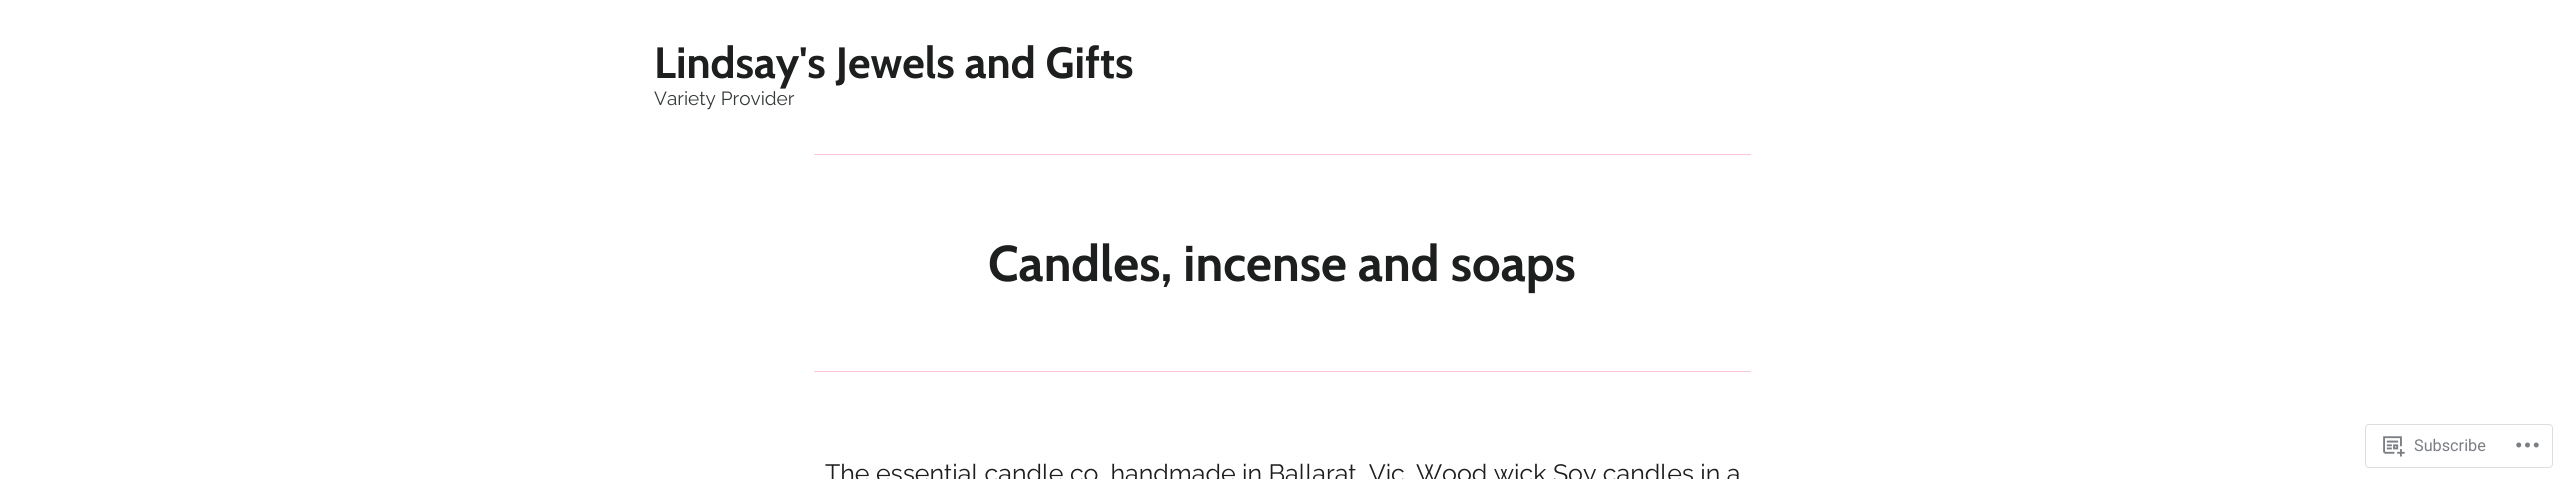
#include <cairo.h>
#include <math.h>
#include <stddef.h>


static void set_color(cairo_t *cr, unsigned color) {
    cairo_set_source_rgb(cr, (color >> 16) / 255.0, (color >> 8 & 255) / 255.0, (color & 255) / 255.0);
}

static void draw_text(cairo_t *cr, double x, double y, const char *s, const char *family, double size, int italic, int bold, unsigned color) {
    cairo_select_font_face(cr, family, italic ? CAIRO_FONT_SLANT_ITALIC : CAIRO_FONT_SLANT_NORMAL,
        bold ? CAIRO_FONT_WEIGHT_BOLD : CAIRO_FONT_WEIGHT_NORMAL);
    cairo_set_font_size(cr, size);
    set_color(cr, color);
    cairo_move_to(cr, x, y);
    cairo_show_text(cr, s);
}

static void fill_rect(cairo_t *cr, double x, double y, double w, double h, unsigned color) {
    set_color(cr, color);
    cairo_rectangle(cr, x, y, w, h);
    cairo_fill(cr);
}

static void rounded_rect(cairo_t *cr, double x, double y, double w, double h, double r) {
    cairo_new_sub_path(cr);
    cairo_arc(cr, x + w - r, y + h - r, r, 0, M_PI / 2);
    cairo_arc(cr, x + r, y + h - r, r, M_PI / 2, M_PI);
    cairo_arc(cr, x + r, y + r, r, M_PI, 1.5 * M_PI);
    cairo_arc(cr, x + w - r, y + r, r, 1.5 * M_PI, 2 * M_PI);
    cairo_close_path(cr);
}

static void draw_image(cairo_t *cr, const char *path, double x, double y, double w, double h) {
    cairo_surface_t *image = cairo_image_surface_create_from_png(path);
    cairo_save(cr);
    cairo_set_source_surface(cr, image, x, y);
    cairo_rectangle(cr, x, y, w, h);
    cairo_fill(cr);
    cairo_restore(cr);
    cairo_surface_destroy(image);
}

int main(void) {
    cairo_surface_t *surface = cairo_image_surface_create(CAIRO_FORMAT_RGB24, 2564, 479);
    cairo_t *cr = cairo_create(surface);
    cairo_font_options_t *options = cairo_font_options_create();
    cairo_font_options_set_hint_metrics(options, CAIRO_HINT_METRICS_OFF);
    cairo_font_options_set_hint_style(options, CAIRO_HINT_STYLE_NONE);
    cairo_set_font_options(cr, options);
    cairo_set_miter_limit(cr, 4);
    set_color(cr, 0xFFFFFF);
    cairo_paint(cr);
    draw_text(cr, 654, 78, "Lindsay's Jewels and Gifts", "Cabin", 43.75, 0, 1, 0x1D1E1E);
    draw_text(cr, 654, 105, "Variety Provider", "Raleway", 19, 0, 0, 0x363939);
    fill_rect(cr, 814, 154, 937, 1, 0xFCC7D3);
    draw_text(cr, 988, 281, "Candles, incense and soaps", "Cabin", 50.25, 0, 1, 0x1D1E1E);
    fill_rect(cr, 814, 371, 937, 1, 0xFCC7D3);
    draw_text(cr, 825, 482, "The essential candle co, handmade in Ballarat, Vic. Wood wick Soy candles in a", "Raleway", 25, 0, 0, 0x1D1E1E);
    rounded_rect(cr, 2365.5, 424.5, 187, 43, 3.5);
    set_color(cr, 0xDDDDDF);
    cairo_set_line_width(cr, 1);
    cairo_stroke(cr);
    draw_image(cr, "assets/img1.png", 2383, 436, 22, 21);
    draw_text(cr, 2414, 451, "Subscribe", "Roboto", 16.25, 0, 0, 0x7B7F85);
    draw_image(cr, "assets/img2.png", 2516, 442, 23, 6);
    cairo_surface_write_to_png(surface, "output.png");
    cairo_font_options_destroy(options);
    cairo_destroy(cr);
    cairo_surface_destroy(surface);
    return 0;
}
